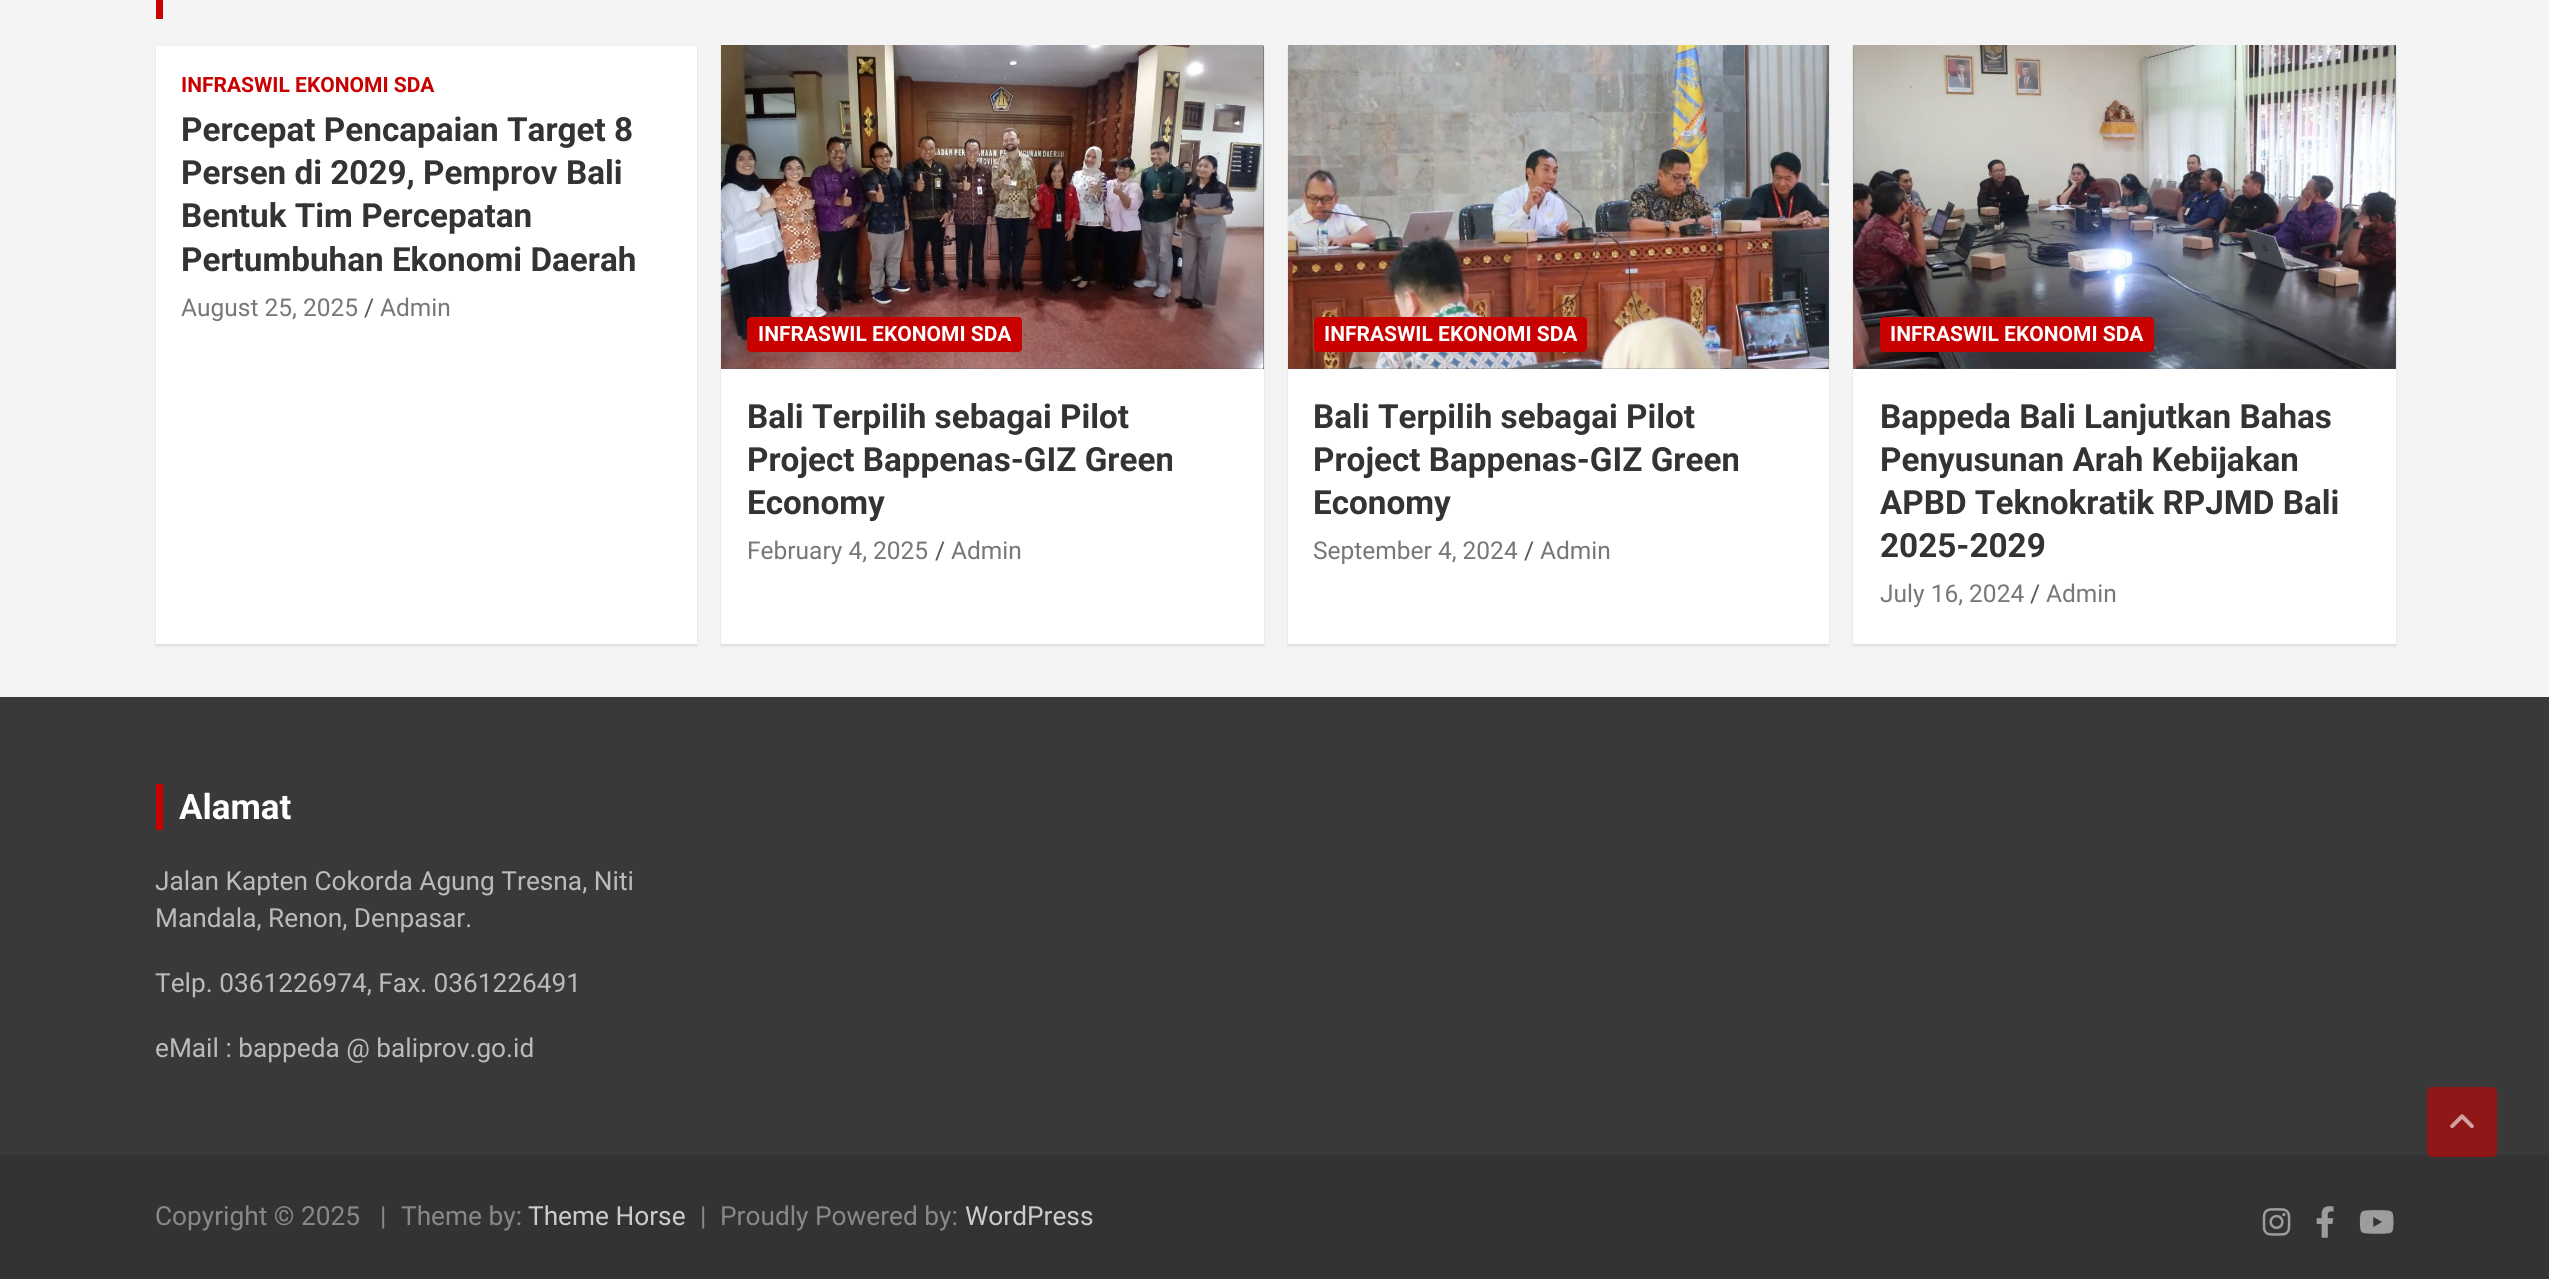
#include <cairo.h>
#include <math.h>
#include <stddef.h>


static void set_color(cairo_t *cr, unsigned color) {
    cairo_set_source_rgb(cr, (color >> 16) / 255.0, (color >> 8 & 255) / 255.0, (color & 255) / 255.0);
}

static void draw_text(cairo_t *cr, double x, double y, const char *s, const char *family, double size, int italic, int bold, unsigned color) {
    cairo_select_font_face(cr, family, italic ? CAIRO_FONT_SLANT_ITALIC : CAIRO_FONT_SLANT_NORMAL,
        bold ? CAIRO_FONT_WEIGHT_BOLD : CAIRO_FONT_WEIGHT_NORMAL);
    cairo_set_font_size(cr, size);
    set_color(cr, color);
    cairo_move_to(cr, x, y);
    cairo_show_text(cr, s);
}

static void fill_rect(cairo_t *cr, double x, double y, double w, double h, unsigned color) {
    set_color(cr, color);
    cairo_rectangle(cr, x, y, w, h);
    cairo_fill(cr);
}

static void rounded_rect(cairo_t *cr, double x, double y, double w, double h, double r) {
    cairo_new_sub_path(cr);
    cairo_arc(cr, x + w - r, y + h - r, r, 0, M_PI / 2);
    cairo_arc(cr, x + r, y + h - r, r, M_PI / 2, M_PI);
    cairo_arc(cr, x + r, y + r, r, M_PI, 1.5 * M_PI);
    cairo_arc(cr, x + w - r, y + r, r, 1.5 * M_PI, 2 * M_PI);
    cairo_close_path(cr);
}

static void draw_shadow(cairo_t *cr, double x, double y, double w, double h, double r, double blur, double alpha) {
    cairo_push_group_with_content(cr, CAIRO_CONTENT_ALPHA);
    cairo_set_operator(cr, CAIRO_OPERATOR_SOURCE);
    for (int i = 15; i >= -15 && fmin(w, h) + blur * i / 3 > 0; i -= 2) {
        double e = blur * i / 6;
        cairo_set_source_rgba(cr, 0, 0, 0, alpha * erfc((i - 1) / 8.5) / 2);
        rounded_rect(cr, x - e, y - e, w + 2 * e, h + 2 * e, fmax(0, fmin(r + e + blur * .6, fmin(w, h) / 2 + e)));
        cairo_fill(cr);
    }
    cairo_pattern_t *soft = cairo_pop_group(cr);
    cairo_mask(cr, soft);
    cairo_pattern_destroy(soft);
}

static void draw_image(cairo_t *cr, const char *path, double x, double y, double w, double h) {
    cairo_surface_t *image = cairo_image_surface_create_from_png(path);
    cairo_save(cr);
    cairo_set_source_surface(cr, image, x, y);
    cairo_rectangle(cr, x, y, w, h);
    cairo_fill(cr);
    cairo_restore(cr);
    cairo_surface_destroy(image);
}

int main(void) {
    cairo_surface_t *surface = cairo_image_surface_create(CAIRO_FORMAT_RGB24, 2549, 1279);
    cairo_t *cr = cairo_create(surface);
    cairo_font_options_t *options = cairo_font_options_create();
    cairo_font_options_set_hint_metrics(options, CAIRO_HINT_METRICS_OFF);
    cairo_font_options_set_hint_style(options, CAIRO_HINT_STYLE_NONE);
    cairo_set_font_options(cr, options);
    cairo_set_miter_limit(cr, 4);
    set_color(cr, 0xF4F4F4);
    cairo_paint(cr);
    fill_rect(cr, 156, 0, 7, 19, 0xC80000);
    set_color(cr, 0x000000);
    draw_shadow(cr, 156, 47, 541, 599, 0, 1, 0.1);
    fill_rect(cr, 156, 46, 541, 598, 0xFFFFFF);
    draw_text(cr, 181, 92, "INFRASWIL EKONOMI SDA", "Roboto", 21, 0, 1, 0xC80000);
    draw_text(cr, 181, 141, "Percepat Pencapaian Target 8", "Roboto", 33.25, 0, 1, 0x333333);
    draw_text(cr, 181, 184, "Persen di 2029, Pemprov Bali", "Roboto", 33.25, 0, 1, 0x333333);
    draw_text(cr, 181, 227, "Bentuk Tim Percepatan", "Roboto", 33.25, 0, 1, 0x333333);
    draw_text(cr, 181, 271, "Pertumbuhan Ekonomi Daerah", "Roboto", 33.25, 0, 1, 0x333333);
    draw_text(cr, 181, 316, "August 25, 2025", "Roboto", 24.5, 0, 0, 0x777777);
    draw_text(cr, 364, 316, "/", "Roboto", 24.5, 0, 0, 0x555555);
    draw_text(cr, 380, 316, "Admin", "Roboto", 24.5, 0, 0, 0x777777);
    set_color(cr, 0x000000);
    draw_shadow(cr, 721, 47, 543, 599, 0, 1, 0.1);
    fill_rect(cr, 721, 369, 543, 275, 0xFFFFFF);
    fill_rect(cr, 721, 46, 543, 323, 0x555555);
    draw_image(cr, "assets/img1.png", 721, 45, 543, 324);
    set_color(cr, 0xC80000);
    rounded_rect(cr, 747, 317, 275, 35, 4);
    cairo_fill(cr);
    draw_text(cr, 758, 341, "INFRASWIL EKONOMI SDA", "Roboto", 21, 0, 1, 0xFFFFFF);
    draw_text(cr, 747, 428, "Bali Terpilih sebagai Pilot", "Roboto", 33.25, 0, 1, 0x333333);
    draw_text(cr, 747, 471, "Project Bappenas-GIZ Green", "Roboto", 33.25, 0, 1, 0x333333);
    draw_text(cr, 747, 514, "Economy", "Roboto", 33.25, 0, 1, 0x333333);
    draw_text(cr, 747, 559, "February 4, 2025", "Roboto", 24.5, 0, 0, 0x777777);
    draw_text(cr, 935, 559, "/", "Roboto", 24.5, 0, 0, 0x555555);
    draw_text(cr, 951, 559, "Admin", "Roboto", 24.5, 0, 0, 0x777777);
    set_color(cr, 0x000000);
    draw_shadow(cr, 1288, 47, 541, 599, 0, 1, 0.1);
    fill_rect(cr, 1288, 369, 541, 275, 0xFFFFFF);
    fill_rect(cr, 1288, 46, 541, 323, 0x555555);
    draw_image(cr, "assets/img2.png", 1288, 45, 541, 324);
    set_color(cr, 0xC80000);
    rounded_rect(cr, 1314, 317, 273, 35, 4);
    cairo_fill(cr);
    draw_text(cr, 1324, 341, "INFRASWIL EKONOMI SDA", "Roboto", 21, 0, 1, 0xFFFFFF);
    draw_text(cr, 1313, 428, "Bali Terpilih sebagai Pilot", "Roboto", 33.25, 0, 1, 0x333333);
    draw_text(cr, 1313, 471, "Project Bappenas-GIZ Green", "Roboto", 33.25, 0, 1, 0x333333);
    draw_text(cr, 1313, 514, "Economy", "Roboto", 33.25, 0, 1, 0x333333);
    draw_text(cr, 1313, 559, "September 4, 2024", "Roboto", 24.5, 0, 0, 0x777777);
    draw_text(cr, 1524, 559, "/", "Roboto", 24.5, 0, 0, 0x555555);
    draw_text(cr, 1540, 559, "Admin", "Roboto", 24.5, 0, 0, 0x777777);
    set_color(cr, 0x000000);
    draw_shadow(cr, 1853, 47, 543, 599, 0, 1, 0.1);
    fill_rect(cr, 1853, 369, 543, 275, 0xFFFFFF);
    fill_rect(cr, 1853, 46, 543, 323, 0x555555);
    draw_image(cr, "assets/img3.png", 1853, 45, 543, 324);
    set_color(cr, 0xC80000);
    rounded_rect(cr, 1880, 317, 274, 35, 4);
    cairo_fill(cr);
    draw_text(cr, 1890, 341, "INFRASWIL EKONOMI SDA", "Roboto", 21, 0, 1, 0xFFFFFF);
    draw_text(cr, 1880, 428, "Bappeda Bali Lanjutkan Bahas", "Roboto", 33.25, 0, 1, 0x333333);
    draw_text(cr, 1880, 471, "Penyusunan Arah Kebijakan", "Roboto", 33.25, 0, 1, 0x333333);
    draw_text(cr, 1880, 514, "APBD Teknokratik RPJMD Bali", "Roboto", 33.25, 0, 1, 0x333333);
    draw_text(cr, 1880, 557, "2025-2029", "Roboto", 33.25, 0, 1, 0x333333);
    draw_text(cr, 1880, 602, "July 16, 2024", "Roboto", 24.5, 0, 0, 0x777777);
    draw_text(cr, 2030, 602, "/", "Roboto", 24.5, 0, 0, 0x555555);
    draw_text(cr, 2046, 602, "Admin", "Roboto", 24.5, 0, 0, 0x777777);
    fill_rect(cr, 0, 697, 2549, 458, 0x393939);
    fill_rect(cr, 156, 784, 7, 46, 0xC80000);
    draw_text(cr, 179, 819, "Alamat", "Roboto", 35, 0, 1, 0xFFFFFF);
    draw_text(cr, 155, 890, "Jalan Kapten Cokorda Agung Tresna, Niti", "Roboto", 26.25, 0, 0, 0xBBBBBB);
    draw_text(cr, 155, 927, "Mandala, Renon, Denpasar.", "Roboto", 26.25, 0, 0, 0xBBBBBB);
    draw_text(cr, 155, 992, "Telp. 0361226974, Fax. 0361226491", "Roboto", 26.25, 0, 0, 0xBBBBBB);
    draw_text(cr, 155, 1057, "eMail : bappeda @ baliprov.go.id", "Roboto", 26.25, 0, 0, 0xBBBBBB);
    fill_rect(cr, 0, 1155, 2549, 124, 0x333333);
    draw_text(cr, 155, 1225, "Copyright © 2025", "Roboto", 26.25, 0, 0, 0x888888);
    draw_text(cr, 380, 1225, "|", "Roboto", 26.25, 0, 0, 0x888888);
    draw_text(cr, 401, 1225, "Theme by:", "Roboto", 26.25, 0, 0, 0x888888);
    draw_text(cr, 528, 1225, "Theme Horse", "Roboto", 26.25, 0, 0, 0xCCCCCC);
    draw_text(cr, 700, 1225, "|", "Roboto", 26.25, 0, 0, 0x888888);
    draw_text(cr, 720, 1225, "Proudly Powered by:", "Roboto", 26.25, 0, 0, 0x888888);
    draw_text(cr, 965, 1225, "WordPress", "Roboto", 26.25, 0, 0, 0xCCCCCC);
    draw_image(cr, "assets/img4.png", 2262, 1208, 29, 28);
    draw_image(cr, "assets/img5.png", 2316, 1206, 18, 32);
    draw_image(cr, "assets/img6.png", 2359, 1210, 35, 24);
    cairo_set_source_rgba(cr, 0.784, 0, 0, 0.6);
    rounded_rect(cr, 2427, 1087, 70, 70, 5);
    cairo_fill(cr);
    draw_image(cr, "assets/img7.png", 2450, 1114, 24, 14);
    cairo_surface_write_to_png(surface, "output.png");
    cairo_font_options_destroy(options);
    cairo_destroy(cr);
    cairo_surface_destroy(surface);
    return 0;
}
